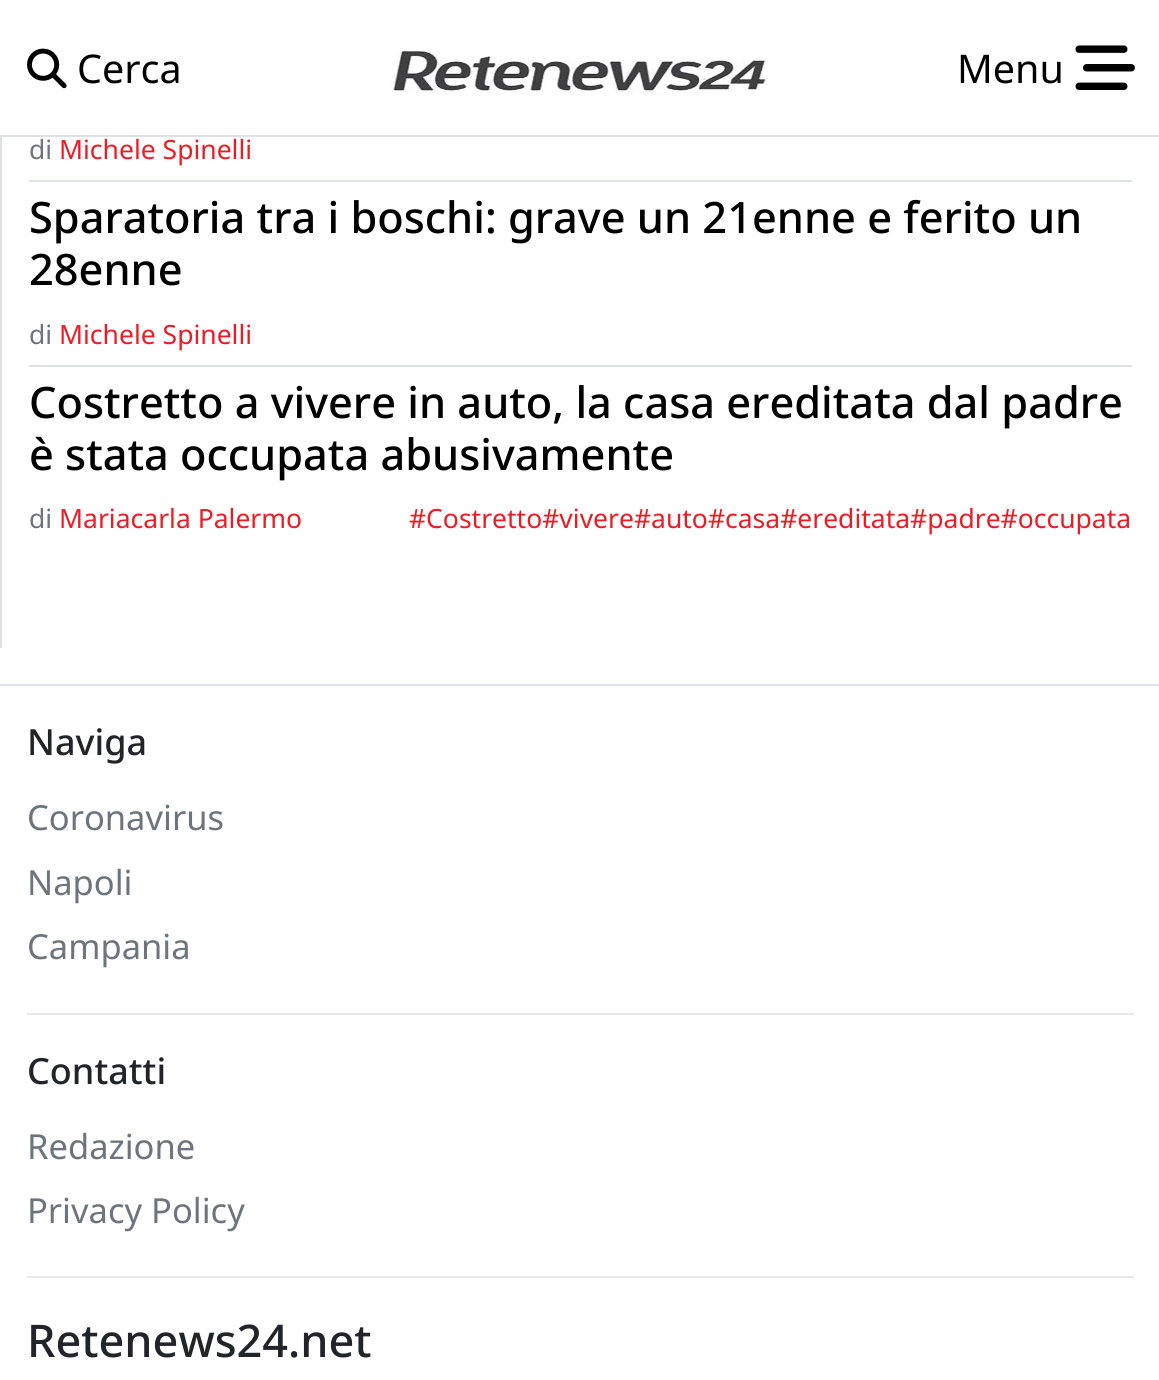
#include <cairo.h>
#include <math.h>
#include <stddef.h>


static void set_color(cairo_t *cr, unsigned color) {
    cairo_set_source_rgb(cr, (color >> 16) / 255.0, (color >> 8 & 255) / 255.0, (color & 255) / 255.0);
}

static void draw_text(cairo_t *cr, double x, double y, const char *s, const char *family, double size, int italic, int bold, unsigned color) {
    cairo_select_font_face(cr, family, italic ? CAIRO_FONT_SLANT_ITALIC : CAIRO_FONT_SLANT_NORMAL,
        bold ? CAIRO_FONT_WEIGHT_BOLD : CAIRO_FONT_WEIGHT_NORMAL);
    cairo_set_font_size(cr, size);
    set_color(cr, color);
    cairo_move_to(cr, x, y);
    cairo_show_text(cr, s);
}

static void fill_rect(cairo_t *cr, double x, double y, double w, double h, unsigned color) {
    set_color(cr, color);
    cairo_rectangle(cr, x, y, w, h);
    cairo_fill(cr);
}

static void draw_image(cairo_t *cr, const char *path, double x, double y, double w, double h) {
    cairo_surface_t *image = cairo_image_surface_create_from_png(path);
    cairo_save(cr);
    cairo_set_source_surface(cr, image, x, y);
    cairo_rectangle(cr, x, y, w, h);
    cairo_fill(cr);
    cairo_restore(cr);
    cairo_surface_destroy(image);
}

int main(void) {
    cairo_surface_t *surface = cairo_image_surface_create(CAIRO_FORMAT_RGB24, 1159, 1380);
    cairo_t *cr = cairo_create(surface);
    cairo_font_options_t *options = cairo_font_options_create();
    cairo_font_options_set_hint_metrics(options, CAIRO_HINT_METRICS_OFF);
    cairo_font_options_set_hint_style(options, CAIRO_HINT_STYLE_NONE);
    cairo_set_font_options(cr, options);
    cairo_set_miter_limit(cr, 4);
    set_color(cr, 0xFFFFFF);
    cairo_paint(cr);
    fill_rect(cr, 0, 135, 1159, 2, 0xDEE2E6);
    draw_image(cr, "assets/img1.png", 27, 48, 40, 41);
    draw_text(cr, 77, 83, "Cerca", "Noto Sans", 39.5, 0, 0, 0x000000);
    draw_image(cr, "assets/img2.png", 390, 51, 379, 42);
    draw_text(cr, 957, 83, "Menu", "Noto Sans", 39.5, 0, 0, 0x000000);
    draw_image(cr, "assets/img3.png", 1075, 45, 60, 45);
    fill_rect(cr, 0, 137, 2, 511, 0xDEE2E6);
    draw_text(cr, 29, 159, "di", "Noto Sans", 26.5, 0, 0, 0x6C757D);
    draw_text(cr, 59, 159, "Michele Spinelli", "Noto Sans", 26.5, 0, 0, 0xED1C24);
    fill_rect(cr, 29, 180, 1103, 2, 0xDEE2E6);
    draw_text(cr, 29, 233, "Sparatoria tra i boschi: grave un 21enne e ferito un", "Noto Sans Medium", 43.3, 0, 0, 0x000000);
    draw_text(cr, 29, 285, "28enne", "Noto Sans Medium", 43.3, 0, 0, 0x000000);
    draw_text(cr, 29, 344, "di", "Noto Sans", 26.5, 0, 0, 0x6C757D);
    draw_text(cr, 59, 344, "Michele Spinelli", "Noto Sans", 26.5, 0, 0, 0xED1C24);
    fill_rect(cr, 29, 365, 1103, 2, 0xDEE2E6);
    draw_text(cr, 29, 418, "Costretto a vivere in auto, la casa ereditata dal padre", "Noto Sans Medium", 43.3, 0, 0, 0x000000);
    draw_text(cr, 29, 470, "è stata occupata abusivamente", "Noto Sans Medium", 43.3, 0, 0, 0x000000);
    draw_text(cr, 29, 528, "di", "Noto Sans", 26.5, 0, 0, 0x6C757D);
    draw_text(cr, 59, 528, "Mariacarla Palermo", "Noto Sans", 26.5, 0, 0, 0xED1C24);
    draw_text(cr, 409, 528, "#Costretto#vivere#auto#casa#ereditata#padre#occupata", "Noto Sans", 26.5, 0, 0, 0xED1C24);
    fill_rect(cr, 0, 684, 1159, 2, 0xDEE2E6);
    draw_text(cr, 27, 755, "Naviga", "Noto Sans Medium", 36, 0, 0, 0x212529);
    draw_text(cr, 27, 830, "Coronavirus", "Noto Sans", 34.5, 0, 0, 0x6C757D);
    draw_text(cr, 27, 895, "Napoli", "Noto Sans", 34.5, 0, 0, 0x6C757D);
    draw_text(cr, 27, 959, "Campania", "Noto Sans", 34.5, 0, 0, 0x6C757D);
    fill_rect(cr, 27, 1013, 1107, 2, 0xE8E8E8);
    draw_text(cr, 27, 1084, "Contatti", "Noto Sans Medium", 36, 0, 0, 0x212529);
    draw_text(cr, 27, 1159, "Redazione", "Noto Sans", 34.5, 0, 0, 0x6C757D);
    draw_text(cr, 27, 1223, "Privacy Policy", "Noto Sans", 34.5, 0, 0, 0x6C757D);
    fill_rect(cr, 27, 1276, 1107, 2, 0xE8E8E8);
    draw_text(cr, 27, 1357, "Retenews24.net", "Noto Sans Medium", 45, 0, 0, 0x212529);
    cairo_surface_write_to_png(surface, "output.png");
    cairo_font_options_destroy(options);
    cairo_destroy(cr);
    cairo_surface_destroy(surface);
    return 0;
}
